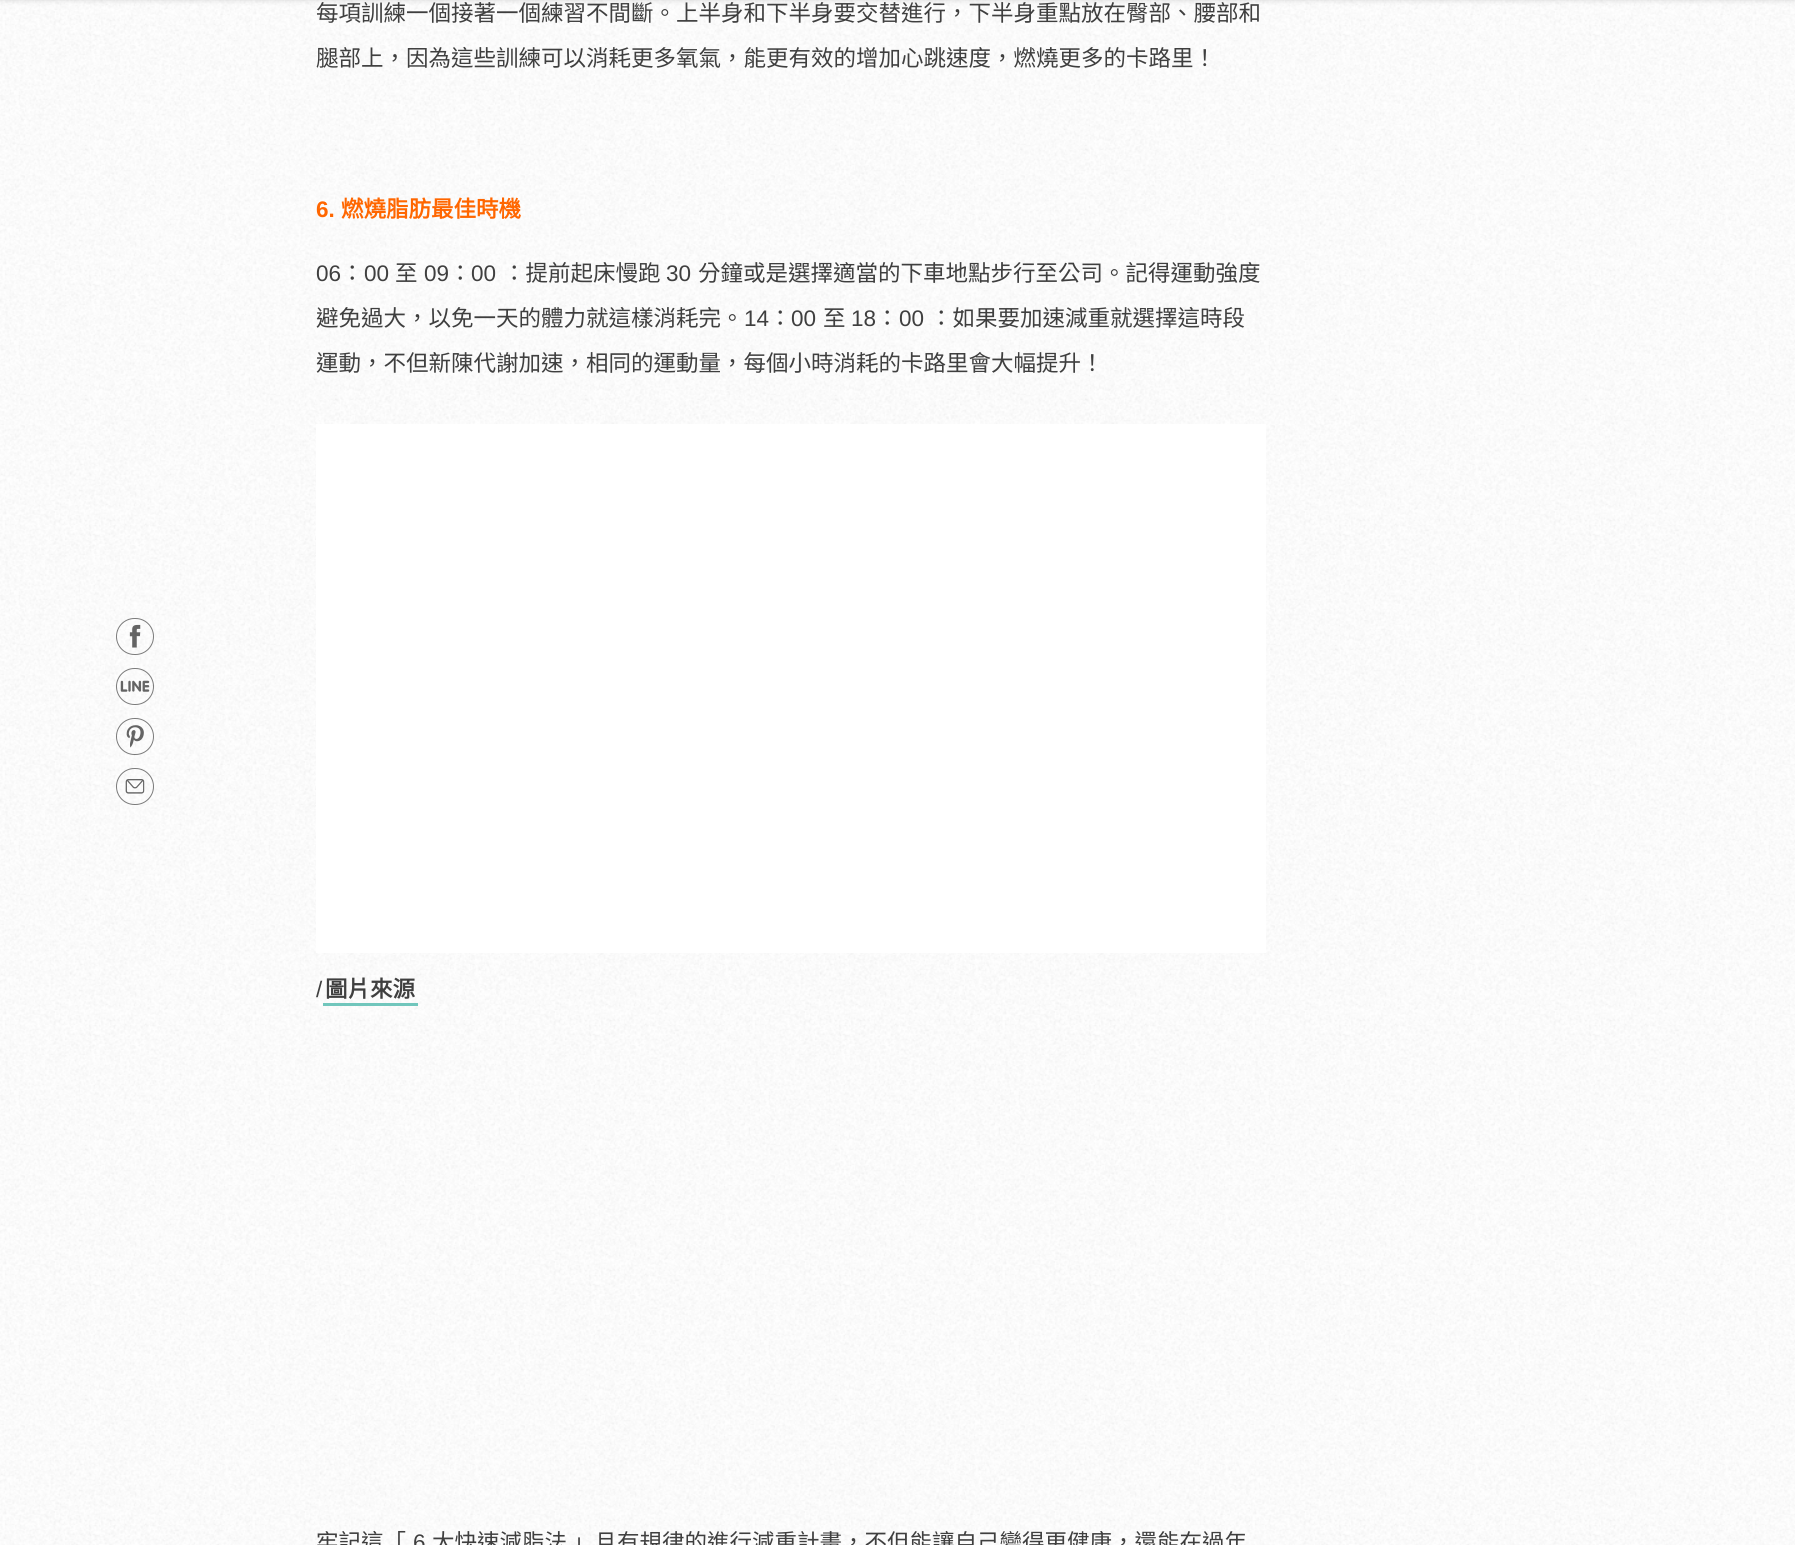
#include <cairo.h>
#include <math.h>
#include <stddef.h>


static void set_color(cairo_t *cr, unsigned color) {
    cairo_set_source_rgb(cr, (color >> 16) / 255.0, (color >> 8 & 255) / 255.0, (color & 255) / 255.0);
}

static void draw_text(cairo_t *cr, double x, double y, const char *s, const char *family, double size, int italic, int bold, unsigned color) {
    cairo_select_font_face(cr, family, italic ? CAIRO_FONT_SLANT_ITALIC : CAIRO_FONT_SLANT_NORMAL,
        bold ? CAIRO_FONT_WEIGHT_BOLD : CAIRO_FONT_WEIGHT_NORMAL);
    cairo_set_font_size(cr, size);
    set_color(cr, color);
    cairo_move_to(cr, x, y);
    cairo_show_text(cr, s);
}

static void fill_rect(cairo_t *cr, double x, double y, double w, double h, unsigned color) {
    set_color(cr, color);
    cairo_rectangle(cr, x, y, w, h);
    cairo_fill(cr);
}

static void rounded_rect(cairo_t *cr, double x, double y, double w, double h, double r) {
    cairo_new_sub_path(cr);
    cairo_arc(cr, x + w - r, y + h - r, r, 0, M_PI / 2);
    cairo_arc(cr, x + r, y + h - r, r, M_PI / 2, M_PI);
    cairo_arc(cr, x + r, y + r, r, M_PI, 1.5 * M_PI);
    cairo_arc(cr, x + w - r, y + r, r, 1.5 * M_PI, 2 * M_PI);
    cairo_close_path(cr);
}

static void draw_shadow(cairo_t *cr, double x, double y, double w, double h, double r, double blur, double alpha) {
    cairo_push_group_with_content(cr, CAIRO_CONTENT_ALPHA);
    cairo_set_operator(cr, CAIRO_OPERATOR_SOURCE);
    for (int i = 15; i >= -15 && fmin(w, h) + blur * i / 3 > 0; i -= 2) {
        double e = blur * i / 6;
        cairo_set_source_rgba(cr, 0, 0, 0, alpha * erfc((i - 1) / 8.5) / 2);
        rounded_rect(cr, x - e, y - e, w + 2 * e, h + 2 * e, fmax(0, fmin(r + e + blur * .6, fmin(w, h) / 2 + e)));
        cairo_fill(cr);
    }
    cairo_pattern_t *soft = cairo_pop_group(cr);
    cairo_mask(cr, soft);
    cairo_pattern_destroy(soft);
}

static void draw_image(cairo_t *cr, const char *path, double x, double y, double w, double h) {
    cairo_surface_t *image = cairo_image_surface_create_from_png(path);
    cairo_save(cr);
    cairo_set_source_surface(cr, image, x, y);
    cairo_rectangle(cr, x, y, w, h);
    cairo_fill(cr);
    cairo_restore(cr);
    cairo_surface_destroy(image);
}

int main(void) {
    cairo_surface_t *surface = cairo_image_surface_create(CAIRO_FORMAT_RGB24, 1795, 1545);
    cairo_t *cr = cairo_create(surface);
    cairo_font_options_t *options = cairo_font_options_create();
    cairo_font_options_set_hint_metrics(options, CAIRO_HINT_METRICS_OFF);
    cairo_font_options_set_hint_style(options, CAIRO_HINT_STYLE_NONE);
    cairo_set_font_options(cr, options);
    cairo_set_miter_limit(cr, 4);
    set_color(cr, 0xFFFFFF);
    cairo_paint(cr);
    draw_image(cr, "assets/img1.png", 0, 0, 1795, 1545);
    set_color(cr, 0x000000);
    draw_shadow(cr, 0, -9, 1795, 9, 0, 3, 0.15);
    rounded_rect(cr, 116.5, 618.5, 37, 36, 18);
    cairo_set_source_rgba(cr, 0.153, 0.153, 0.153, 0.6);
    cairo_set_line_width(cr, 1);
    cairo_stroke(cr);
    draw_image(cr, "assets/img2.png", 129, 624, 12, 24);
    rounded_rect(cr, 116.5, 668.5, 37, 36, 18);
    cairo_stroke(cr);
    draw_image(cr, "assets/img3.png", 120, 680, 30, 12);
    rounded_rect(cr, 116.5, 718.5, 37, 36, 18);
    cairo_stroke(cr);
    draw_image(cr, "assets/img4.png", 126, 725, 18, 23);
    rounded_rect(cr, 116.5, 768.5, 37, 36, 18);
    cairo_stroke(cr);
    draw_image(cr, "assets/img5.png", 125, 779, 20, 15);
    draw_text(cr, 316, 21, "每項訓練一個接著一個練習不間斷。上半身和下半身要交替進行，下半身重點放在臀部、腰部和", "Noto Sans CJK TC", 22.5, 0, 0, 0x3F3F3F);
    draw_text(cr, 316, 66, "腿部上，因為這些訓練可以消耗更多氧氣，能更有效的增加心跳速度，燃燒更多的卡路里！", "Noto Sans CJK TC", 22.5, 0, 0, 0x3F3F3F);
    draw_text(cr, 316, 217, "6.", "Liberation Sans", 22.5, 0, 1, 0xFF6600);
    draw_text(cr, 341, 217, "燃燒脂肪最佳時機", "Noto Sans CJK TC", 22.5, 0, 1, 0xFF6600);
    draw_text(cr, 316, 281, "06", "Liberation Sans", 22.5, 0, 0, 0x3F3F3F);
    draw_text(cr, 341, 281, "：", "Noto Sans CJK TC", 22.5, 0, 0, 0x3F3F3F);
    draw_text(cr, 364, 281, "00", "Liberation Sans", 22.5, 0, 0, 0x3F3F3F);
    draw_text(cr, 395, 281, "至", "Noto Sans CJK TC", 22.5, 0, 0, 0x3F3F3F);
    draw_text(cr, 424, 281, "09", "Liberation Sans", 22.5, 0, 0, 0x3F3F3F);
    draw_text(cr, 449, 281, "：", "Noto Sans CJK TC", 22.5, 0, 0, 0x3F3F3F);
    draw_text(cr, 471, 281, "00", "Liberation Sans", 22.5, 0, 0, 0x3F3F3F);
    draw_text(cr, 503, 281, "：提前起床慢跑", "Noto Sans CJK TC", 22.5, 0, 0, 0x3F3F3F);
    draw_text(cr, 666, 281, "30", "Liberation Sans", 22.5, 0, 0, 0x3F3F3F);
    draw_text(cr, 698, 281, "分鐘或是選擇適當的下車地點步行至公司。記得運動強度", "Noto Sans CJK TC", 22.5, 0, 0, 0x3F3F3F);
    draw_text(cr, 316, 326, "避免過大，以免一天的體力就這樣消耗完。", "Noto Sans CJK TC", 22.5, 0, 0, 0x3F3F3F);
    draw_text(cr, 744, 326, "14", "Liberation Sans", 22.5, 0, 0, 0x3F3F3F);
    draw_text(cr, 769, 326, "：", "Noto Sans CJK TC", 22.5, 0, 0, 0x3F3F3F);
    draw_text(cr, 791, 326, "00", "Liberation Sans", 22.5, 0, 0, 0x3F3F3F);
    draw_text(cr, 823, 326, "至", "Noto Sans CJK TC", 22.5, 0, 0, 0x3F3F3F);
    draw_text(cr, 851, 326, "18", "Liberation Sans", 22.5, 0, 0, 0x3F3F3F);
    draw_text(cr, 876, 326, "：", "Noto Sans CJK TC", 22.5, 0, 0, 0x3F3F3F);
    draw_text(cr, 899, 326, "00", "Liberation Sans", 22.5, 0, 0, 0x3F3F3F);
    draw_text(cr, 930, 326, "：如果要加速減重就選擇這時段", "Noto Sans CJK TC", 22.5, 0, 0, 0x3F3F3F);
    draw_text(cr, 316, 371, "運動，不但新陳代謝加速，相同的運動量，每個小時消耗的卡路里會大幅提升！", "Noto Sans CJK TC", 22.5, 0, 0, 0x3F3F3F);
    fill_rect(cr, 316, 424, 950, 529, 0xFFFFFF);
    draw_text(cr, 316, 997, "/", "Liberation Sans", 22.5, 0, 0, 0x3F3F3F);
    draw_text(cr, 325, 997, "圖片來源", "Noto Sans CJK TC", 22.5, 0, 1, 0x3F3F3F);
    fill_rect(cr, 323, 1003, 95, 3, 0x71C6BC);
    draw_text(cr, 316, 1550, "牢記這「", "Noto Sans CJK TC", 22.5, 0, 0, 0x3F3F3F);
    draw_text(cr, 413, 1550, "6", "Liberation Sans", 22.5, 0, 0, 0x3F3F3F);
    draw_text(cr, 432, 1550, "大快速減脂法 」且有規律的進行減重計畫，不但能讓自己變得更健康，還能在過年", "Noto Sans CJK TC", 22.5, 0, 0, 0x3F3F3F);
    cairo_surface_write_to_png(surface, "output.png");
    cairo_font_options_destroy(options);
    cairo_destroy(cr);
    cairo_surface_destroy(surface);
    return 0;
}
